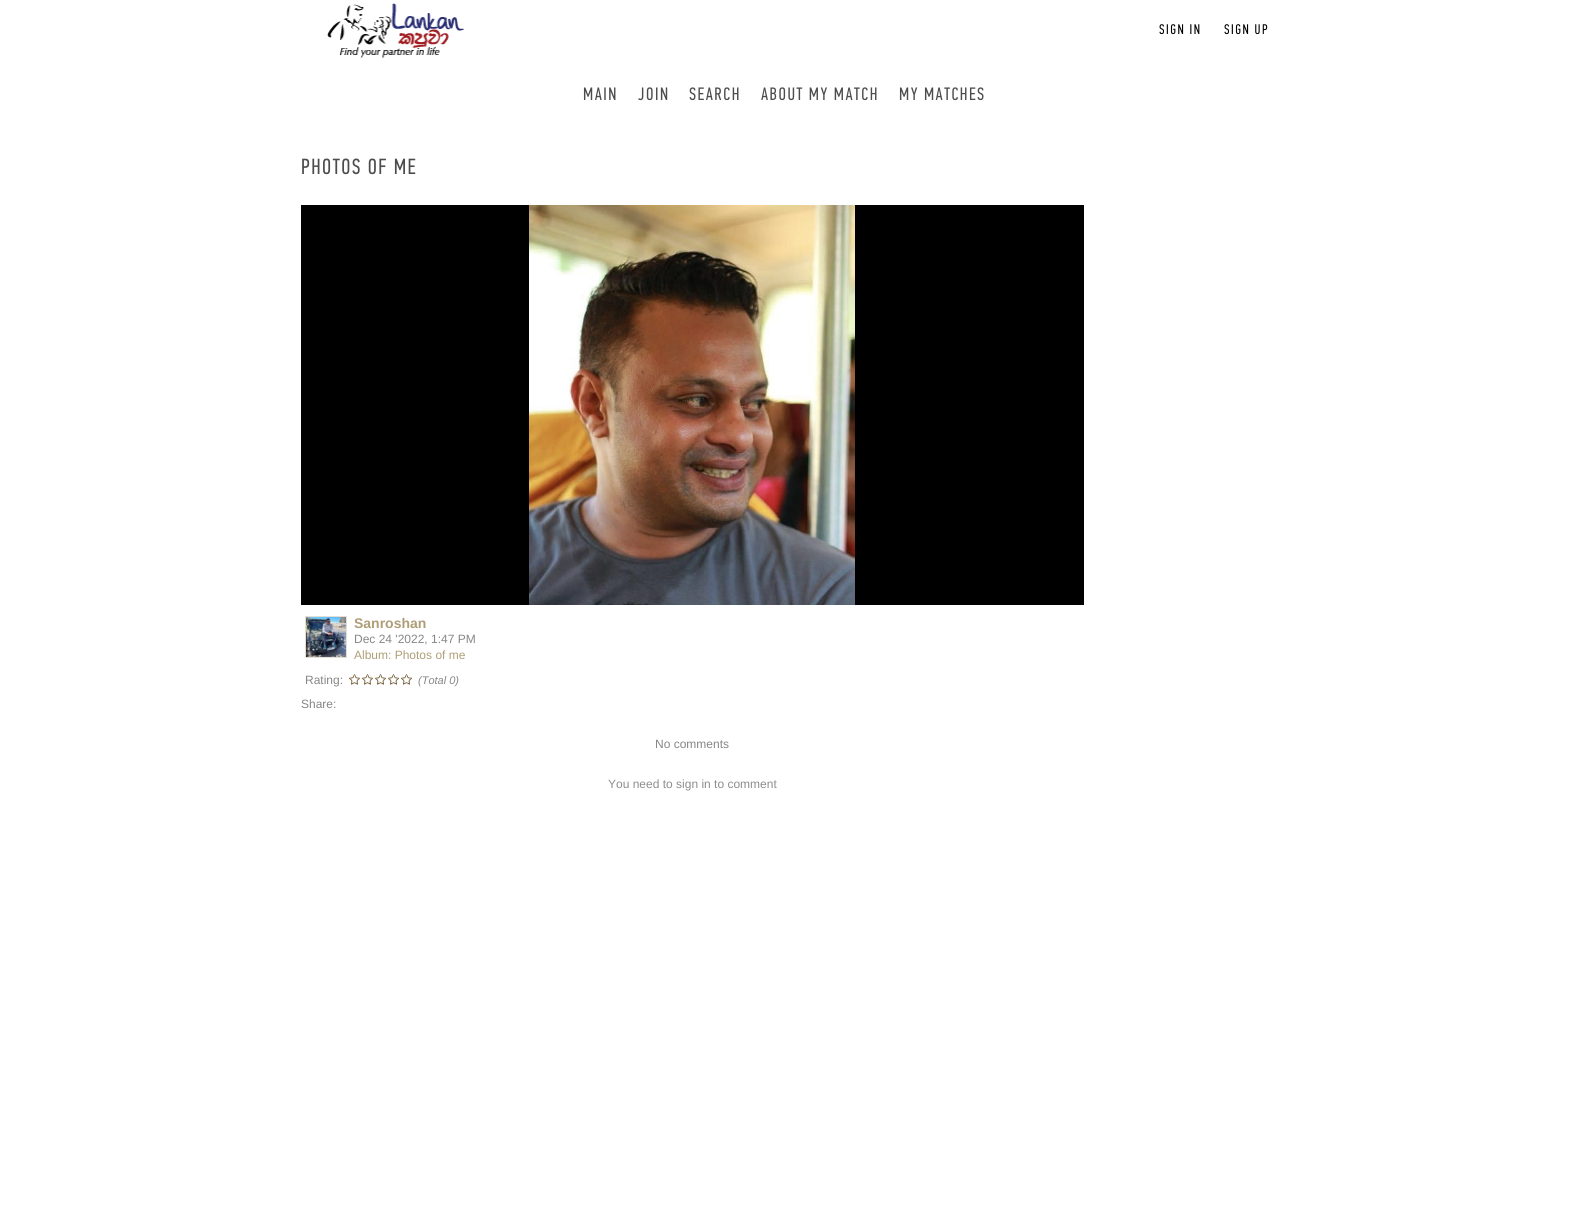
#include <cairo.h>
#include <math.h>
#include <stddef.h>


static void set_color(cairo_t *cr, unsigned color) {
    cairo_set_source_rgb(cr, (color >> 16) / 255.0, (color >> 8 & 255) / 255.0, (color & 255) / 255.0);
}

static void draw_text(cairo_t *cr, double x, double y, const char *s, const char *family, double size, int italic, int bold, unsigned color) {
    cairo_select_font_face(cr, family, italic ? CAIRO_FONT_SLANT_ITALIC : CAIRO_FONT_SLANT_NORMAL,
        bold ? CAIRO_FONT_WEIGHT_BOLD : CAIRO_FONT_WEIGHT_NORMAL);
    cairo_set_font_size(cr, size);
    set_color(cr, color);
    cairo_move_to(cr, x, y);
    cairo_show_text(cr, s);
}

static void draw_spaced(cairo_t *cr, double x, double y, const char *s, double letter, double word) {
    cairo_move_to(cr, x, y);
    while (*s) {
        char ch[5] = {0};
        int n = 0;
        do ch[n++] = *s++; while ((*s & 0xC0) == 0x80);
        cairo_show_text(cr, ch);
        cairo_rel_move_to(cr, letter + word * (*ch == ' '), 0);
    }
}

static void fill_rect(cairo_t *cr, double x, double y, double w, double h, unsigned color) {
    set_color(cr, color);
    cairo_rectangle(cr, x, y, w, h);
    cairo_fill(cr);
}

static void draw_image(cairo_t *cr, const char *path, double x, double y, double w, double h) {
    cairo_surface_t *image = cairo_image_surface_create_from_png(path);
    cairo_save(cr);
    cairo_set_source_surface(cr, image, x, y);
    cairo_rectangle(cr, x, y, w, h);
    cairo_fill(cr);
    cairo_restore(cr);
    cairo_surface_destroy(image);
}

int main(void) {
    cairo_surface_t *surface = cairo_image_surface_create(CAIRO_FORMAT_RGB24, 1569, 1231);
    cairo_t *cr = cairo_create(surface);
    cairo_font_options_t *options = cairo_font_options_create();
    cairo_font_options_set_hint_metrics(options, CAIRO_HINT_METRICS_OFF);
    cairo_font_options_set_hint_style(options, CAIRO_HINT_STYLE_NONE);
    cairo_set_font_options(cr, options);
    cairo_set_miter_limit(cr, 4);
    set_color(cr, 0xFFFFFF);
    cairo_paint(cr);
    draw_image(cr, "assets/img1.png", 327, 3, 137, 55);
    cairo_select_font_face(cr, "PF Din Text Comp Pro", CAIRO_FONT_SLANT_NORMAL, CAIRO_FONT_WEIGHT_NORMAL);
    cairo_set_font_size(cr, 14);
    set_color(cr, 0x000000);
    draw_spaced(cr, 1159, 34, "SIGN IN", 1.5, 0);
    draw_spaced(cr, 1224, 34, "SIGN UP", 1.5, 0);
    cairo_set_font_size(cr, 18);
    set_color(cr, 0x4C4C4C);
    draw_spaced(cr, 583, 100, "MAIN", 1.5, 0);
    draw_spaced(cr, 638, 100, "JOIN", 1.5, 0);
    draw_spaced(cr, 689, 100, "SEARCH", 1.5, 0);
    draw_spaced(cr, 761, 100, "ABOUT MY MATCH", 1.5, 0);
    draw_spaced(cr, 899, 100, "MY MATCHES", 1.5, 0);
    cairo_set_font_size(cr, 22);
    draw_spaced(cr, 301, 174, "PHOTOS OF ME", 1.5, 0);
    fill_rect(cr, 301, 205, 783, 400, 0x000000);
    draw_image(cr, "assets/img2.png", 529, 205, 326, 400);
    cairo_rectangle(cr, 305.5, 616.5, 41, 41);
    set_color(cr, 0xE4DFD2);
    cairo_set_line_width(cr, 1);
    cairo_stroke(cr);
    draw_image(cr, "assets/img3.png", 306, 617, 40, 40);
    draw_text(cr, 354, 628, "Sanroshan", "Liberation Sans", 14, 0, 1, 0xAE9E78);
    draw_text(cr, 354, 643, "Dec 24 '2022, 1:47 PM", "Liberation Sans", 12, 0, 0, 0x868686);
    draw_text(cr, 354, 659, "Album: Photos of me", "Liberation Sans", 12, 0, 0, 0xAE9E78);
    draw_text(cr, 305, 684, "Rating:", "Liberation Sans", 12, 0, 0, 0x868686);
    draw_image(cr, "assets/img4.png", 349, 674, 63, 11);
    draw_text(cr, 418, 684, "(Total 0)", "Liberation Sans", 11, 1, 0, 0x868686);
    draw_text(cr, 301, 708, "Share:", "Liberation Sans", 12, 0, 0, 0x868686);
    draw_text(cr, 655, 748, "No comments", "Liberation Sans", 12, 0, 0, 0x868686);
    draw_text(cr, 608, 788, "You need to sign in to comment", "Liberation Sans", 12, 0, 0, 0x8E8D8D);
    cairo_surface_write_to_png(surface, "output.png");
    cairo_font_options_destroy(options);
    cairo_destroy(cr);
    cairo_surface_destroy(surface);
    return 0;
}
